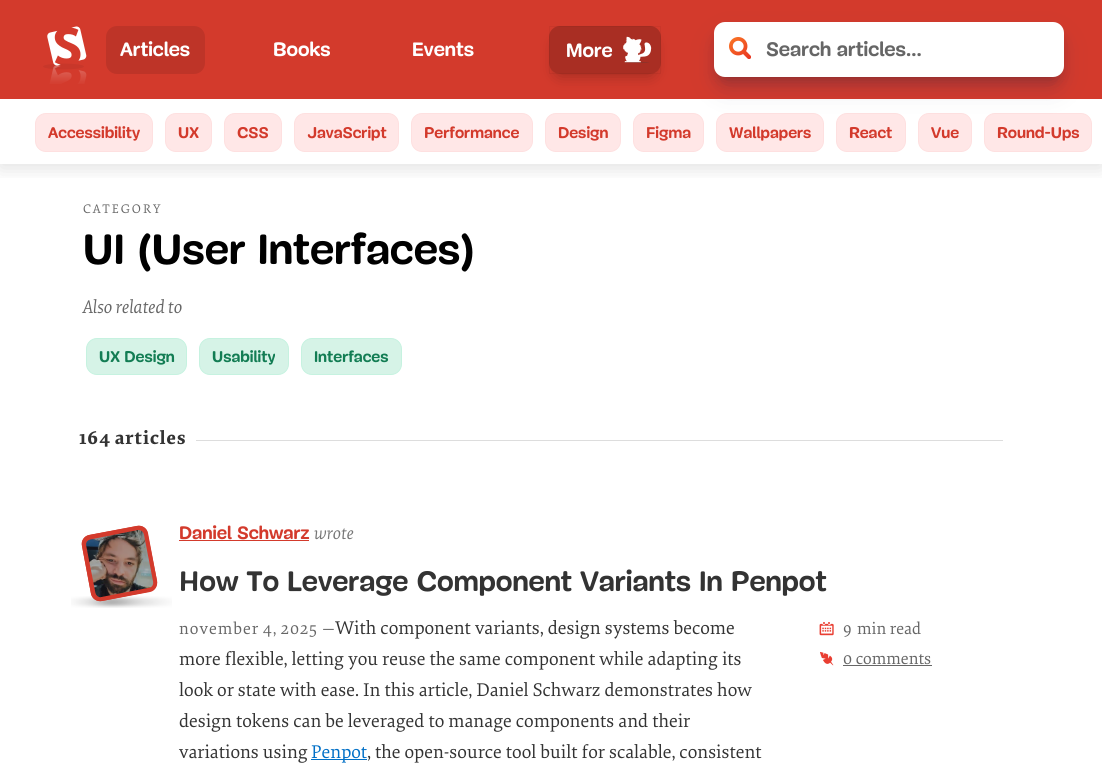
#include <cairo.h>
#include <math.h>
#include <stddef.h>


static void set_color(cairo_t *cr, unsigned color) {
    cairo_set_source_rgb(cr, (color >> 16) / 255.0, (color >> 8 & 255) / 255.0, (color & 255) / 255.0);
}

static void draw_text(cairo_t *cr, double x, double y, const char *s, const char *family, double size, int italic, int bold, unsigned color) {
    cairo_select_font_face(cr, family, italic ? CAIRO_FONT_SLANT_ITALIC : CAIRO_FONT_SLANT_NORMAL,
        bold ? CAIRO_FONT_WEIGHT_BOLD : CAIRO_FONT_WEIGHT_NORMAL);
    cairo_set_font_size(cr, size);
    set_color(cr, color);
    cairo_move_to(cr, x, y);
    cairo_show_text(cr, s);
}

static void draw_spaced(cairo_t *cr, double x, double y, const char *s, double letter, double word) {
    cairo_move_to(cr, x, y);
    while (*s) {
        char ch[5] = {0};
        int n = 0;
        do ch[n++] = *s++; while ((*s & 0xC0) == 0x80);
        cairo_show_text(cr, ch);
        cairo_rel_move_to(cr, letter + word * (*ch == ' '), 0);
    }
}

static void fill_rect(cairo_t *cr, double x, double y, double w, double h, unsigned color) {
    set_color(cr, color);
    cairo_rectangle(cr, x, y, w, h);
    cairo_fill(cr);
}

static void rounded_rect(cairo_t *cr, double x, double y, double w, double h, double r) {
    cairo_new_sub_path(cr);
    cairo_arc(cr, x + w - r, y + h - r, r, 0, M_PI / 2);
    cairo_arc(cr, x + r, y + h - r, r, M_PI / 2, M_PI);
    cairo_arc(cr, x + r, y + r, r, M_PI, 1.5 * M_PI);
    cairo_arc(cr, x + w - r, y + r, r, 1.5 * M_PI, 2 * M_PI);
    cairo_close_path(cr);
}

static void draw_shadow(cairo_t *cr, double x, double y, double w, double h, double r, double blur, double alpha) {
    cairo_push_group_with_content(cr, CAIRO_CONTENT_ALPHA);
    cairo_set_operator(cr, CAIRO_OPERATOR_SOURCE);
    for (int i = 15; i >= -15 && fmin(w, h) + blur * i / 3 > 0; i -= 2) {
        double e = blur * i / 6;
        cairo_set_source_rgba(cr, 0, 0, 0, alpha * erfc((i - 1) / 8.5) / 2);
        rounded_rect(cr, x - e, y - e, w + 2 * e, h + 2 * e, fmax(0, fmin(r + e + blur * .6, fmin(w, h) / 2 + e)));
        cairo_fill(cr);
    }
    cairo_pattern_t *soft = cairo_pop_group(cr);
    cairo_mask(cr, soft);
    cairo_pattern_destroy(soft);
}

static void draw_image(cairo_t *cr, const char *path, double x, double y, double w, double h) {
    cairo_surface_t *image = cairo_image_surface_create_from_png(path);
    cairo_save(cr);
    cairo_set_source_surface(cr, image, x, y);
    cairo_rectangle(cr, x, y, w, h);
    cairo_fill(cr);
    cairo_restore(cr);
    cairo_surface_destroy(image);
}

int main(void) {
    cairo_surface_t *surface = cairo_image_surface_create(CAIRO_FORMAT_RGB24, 1102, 778);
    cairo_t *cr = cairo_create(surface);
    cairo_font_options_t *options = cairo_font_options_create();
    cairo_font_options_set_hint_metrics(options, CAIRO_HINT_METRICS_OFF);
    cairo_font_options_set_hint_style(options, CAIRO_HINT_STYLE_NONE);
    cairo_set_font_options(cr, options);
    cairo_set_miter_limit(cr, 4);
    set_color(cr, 0xFFFFFF);
    cairo_paint(cr);
    cairo_save(cr);
    cairo_rectangle(cr, 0, 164, 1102, 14);
    cairo_clip(cr);
    set_color(cr, 0x000000);
    draw_shadow(cr, 0, 103, 1102, 65, 0, 10, 0.12);
    cairo_restore(cr);
    fill_rect(cr, 0, 0, 1102, 99, 0xD33A2C);
    draw_image(cr, "assets/img1.png", 43, 26, 44, 58);
    set_color(cr, 0xBE3428);
    rounded_rect(cr, 106, 26, 99, 48, 11);
    cairo_fill(cr);
    draw_text(cr, 120, 56, "Articles", "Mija", 20, 0, 1, 0xFFFFFF);
    draw_text(cr, 273, 56, "Books", "Mija", 20, 0, 1, 0xFFFFFF);
    draw_text(cr, 412, 56, "Events", "Mija", 20, 0, 1, 0xFFFFFF);
    cairo_save(cr);
    cairo_set_fill_rule(cr, CAIRO_FILL_RULE_EVEN_ODD);
    cairo_new_path(cr);
    cairo_move_to(cr, 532, 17);
    cairo_line_to(cr, 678, 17);
    cairo_line_to(cr, 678, 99);
    cairo_line_to(cr, 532, 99);
    cairo_close_path(cr);
    cairo_move_to(cr, 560, 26);
    cairo_line_to(cr, 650, 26);
    cairo_curve_to(cr, 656, 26, 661, 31, 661, 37);
    cairo_line_to(cr, 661, 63);
    cairo_curve_to(cr, 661, 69, 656, 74, 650, 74);
    cairo_line_to(cr, 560, 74);
    cairo_curve_to(cr, 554, 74, 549, 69, 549, 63);
    cairo_line_to(cr, 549, 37);
    cairo_curve_to(cr, 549, 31, 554, 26, 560, 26);
    cairo_close_path(cr);
    cairo_clip(cr);
    set_color(cr, 0x000000);
    draw_shadow(cr, 557, 42, 96, 32, 3, 8, 0.3);
    cairo_restore(cr);
    cairo_set_source_rgba(cr, 0, 0, 0, 0.2);
    rounded_rect(cr, 549, 26, 112, 48, 11);
    cairo_fill(cr);
    cairo_rectangle(cr, 549.5, 26.5, 111, 47);
    cairo_set_source_rgba(cr, 0, 0, 0, 0.05);
    cairo_set_line_width(cr, 1);
    cairo_stroke(cr);
    draw_text(cr, 566, 57, "More", "Mija", 20, 0, 1, 0xFFFFFF);
    draw_image(cr, "assets/img2.png", 623, 36, 29, 27);
    set_color(cr, 0x000000);
    draw_shadow(cr, 722, 38, 334, 39, 3, 8, 0.3);
    set_color(cr, 0xFFE7E7);
    rounded_rect(cr, 633.5, 113.5, 70, 38, 10.5);
    cairo_fill_preserve(cr);
    set_color(cr, 0xFEE0E0);
    cairo_stroke(cr);
    set_color(cr, 0xFFE7E7);
    rounded_rect(cr, 716.5, 113.5, 107, 38, 10.5);
    cairo_fill_preserve(cr);
    set_color(cr, 0xFEE0E0);
    cairo_stroke(cr);
    set_color(cr, 0xFFE7E7);
    rounded_rect(cr, 836.5, 113.5, 69, 38, 10.5);
    cairo_fill_preserve(cr);
    set_color(cr, 0xFEE0E0);
    cairo_stroke(cr);
    set_color(cr, 0xFFE7E7);
    rounded_rect(cr, 918.5, 113.5, 53, 38, 10.5);
    cairo_fill_preserve(cr);
    set_color(cr, 0xFEE0E0);
    cairo_stroke(cr);
    set_color(cr, 0xFFE7E7);
    rounded_rect(cr, 984.5, 113.5, 107, 38, 10.5);
    cairo_fill_preserve(cr);
    set_color(cr, 0xFEE0E0);
    cairo_stroke(cr);
    set_color(cr, 0x32325D);
    draw_shadow(cr, 719, 40, 340, 45, 6, 13.5, 0.25);
    set_color(cr, 0xFFFFFF);
    rounded_rect(cr, 714, 22, 350, 55, 11);
    cairo_fill(cr);
    draw_image(cr, "assets/img3.png", 729, 37, 22, 22);
    draw_text(cr, 766, 56, "Search articles...", "Mija", 20.25, 0, 1, 0x666666);
    set_color(cr, 0xFFE7E7);
    rounded_rect(cr, 35.5, 113.5, 117, 38, 10.5);
    cairo_fill_preserve(cr);
    set_color(cr, 0xFEE0E0);
    cairo_stroke(cr);
    draw_text(cr, 48, 138, "Accessibility", "Mija", 16, 0, 1, 0xD33A2C);
    set_color(cr, 0xFFE7E7);
    rounded_rect(cr, 165.5, 113.5, 46, 38, 10.5);
    cairo_fill_preserve(cr);
    set_color(cr, 0xFEE0E0);
    cairo_stroke(cr);
    draw_text(cr, 178, 138, "UX", "Mija", 16, 0, 1, 0xD33A2C);
    set_color(cr, 0xFFE7E7);
    rounded_rect(cr, 224.5, 113.5, 57, 38, 10.5);
    cairo_fill_preserve(cr);
    set_color(cr, 0xFEE0E0);
    cairo_stroke(cr);
    draw_text(cr, 237, 138, "CSS", "Mija", 16, 0, 1, 0xD33A2C);
    set_color(cr, 0xFFE7E7);
    rounded_rect(cr, 294.5, 113.5, 104, 38, 10.5);
    cairo_fill_preserve(cr);
    set_color(cr, 0xFEE0E0);
    cairo_stroke(cr);
    draw_text(cr, 307, 138, "JavaScript", "Mija", 16, 0, 1, 0xD33A2C);
    set_color(cr, 0xFFE7E7);
    rounded_rect(cr, 411.5, 113.5, 121, 38, 10.5);
    cairo_fill_preserve(cr);
    set_color(cr, 0xFEE0E0);
    cairo_stroke(cr);
    draw_text(cr, 424, 138, "Performance", "Mija", 16, 0, 1, 0xD33A2C);
    set_color(cr, 0xFFE7E7);
    rounded_rect(cr, 545.5, 113.5, 75, 38, 10.5);
    cairo_fill_preserve(cr);
    set_color(cr, 0xFEE0E0);
    cairo_stroke(cr);
    draw_text(cr, 558, 138, "Design", "Mija", 16, 0, 1, 0xD33A2C);
    draw_text(cr, 646, 138, "Figma", "Mija", 16, 0, 1, 0xD33A2C);
    draw_text(cr, 729, 138, "Wallpapers", "Mija", 16, 0, 1, 0xD33A2C);
    draw_text(cr, 849, 138, "React", "Mija", 16, 0, 1, 0xD33A2C);
    draw_text(cr, 931, 138, "Vue", "Mija", 16, 0, 1, 0xD33A2C);
    draw_text(cr, 997, 138, "Round-Ups", "Mija", 16, 0, 1, 0xD33A2C);
    cairo_select_font_face(cr, "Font", CAIRO_FONT_SLANT_NORMAL, CAIRO_FONT_WEIGHT_NORMAL);
    cairo_set_font_size(cr, 13);
    set_color(cr, 0x666666);
    draw_spaced(cr, 83, 213, "CATEGORY", 2, 0);
    draw_text(cr, 83, 264, "UI (User Interfaces)", "Mija", 43.6, 0, 1, 0x000000);
    draw_text(cr, 83, 313, "Also related to", "Font", 19.2, 1, 0, 0x666666);
    set_color(cr, 0xD6F3E7);
    rounded_rect(cr, 86.5, 338.5, 100, 36, 10.5);
    cairo_fill_preserve(cr);
    set_color(cr, 0xC6F2E0);
    cairo_stroke(cr);
    draw_text(cr, 99, 362, "UX Design", "Mija", 16, 0, 1, 0x137D54);
    set_color(cr, 0xD6F3E7);
    rounded_rect(cr, 199.5, 338.5, 89, 36, 10.5);
    cairo_fill_preserve(cr);
    set_color(cr, 0xC6F2E0);
    cairo_stroke(cr);
    draw_text(cr, 212, 362, "Usability", "Mija", 16, 0, 1, 0x137D54);
    set_color(cr, 0xD6F3E7);
    rounded_rect(cr, 301.5, 338.5, 100, 36, 10.5);
    cairo_fill_preserve(cr);
    set_color(cr, 0xC6F2E0);
    cairo_stroke(cr);
    draw_text(cr, 314, 362, "Interfaces", "Mija", 16, 0, 1, 0x137D54);
    fill_rect(cr, 196, 440, 807, 1, 0xDDDDDD);
    cairo_select_font_face(cr, "Font", CAIRO_FONT_SLANT_NORMAL, CAIRO_FONT_WEIGHT_BOLD);
    cairo_set_font_size(cr, 19.2);
    set_color(cr, 0x333333);
    draw_spaced(cr, 79, 444, "164 articles", 1, -1);
    draw_image(cr, "assets/img5.png", 71, 596, 101, 12);
    set_color(cr, 0xD33A2C);
    cairo_new_path(cr);
    cairo_move_to(cr, 89, 535);
    cairo_line_to(cr, 137, 526);
    cairo_curve_to(cr, 142, 525, 147, 528, 148, 533);
    cairo_line_to(cr, 157, 581);
    cairo_curve_to(cr, 158, 586, 155, 591, 150, 592);
    cairo_line_to(cr, 102, 601);
    cairo_curve_to(cr, 97, 602, 92, 599, 91, 594);
    cairo_line_to(cr, 82, 546);
    cairo_curve_to(cr, 81, 541, 84, 536, 89, 535);
    cairo_close_path(cr);
    cairo_fill(cr);
    cairo_new_path(cr);
    cairo_move_to(cr, 89.5, 537);
    cairo_line_to(cr, 137, 528);
    cairo_curve_to(cr, 141, 527, 145, 529.5, 145.5, 533.5);
    cairo_line_to(cr, 155, 581);
    cairo_curve_to(cr, 155.5, 585, 153, 589, 149, 589.5);
    cairo_line_to(cr, 101.5, 599);
    cairo_curve_to(cr, 97.5, 599.5, 94, 597, 93, 593);
    cairo_line_to(cr, 84, 545.5);
    cairo_curve_to(cr, 83, 541.5, 85.5, 538, 89.5, 537);
    cairo_close_path(cr);
    cairo_set_line_width(cr, 4.2);
    cairo_stroke(cr);
    draw_image(cr, "assets/img4.png", 86, 530, 68, 68);
    draw_text(cr, 179, 539, "Daniel Schwarz", "Mija", 18.5, 0, 1, 0xD33A2C);
    fill_rect(cr, 179, 540, 130, 1, 0xD33A2C);
    draw_text(cr, 314, 539, "wrote", "Font", 18.5, 1, 0, 0x767676);
    draw_text(cr, 179, 591, "How To Leverage Component Variants In Penpot", "Mija", 29, 0, 1, 0x333333);
    cairo_select_font_face(cr, "Font", CAIRO_FONT_SLANT_NORMAL, CAIRO_FONT_WEIGHT_NORMAL);
    cairo_set_font_size(cr, 17.25);
    set_color(cr, 0x666666);
    draw_spaced(cr, 179, 634, "november 4, 2025 —", 1, -1);
    draw_text(cr, 335, 634, "With component variants, design systems become", "Font", 19.2, 0, 0, 0x333333);
    draw_text(cr, 179, 665, "more flexible, letting you reuse the same component while adapting its", "Font", 19.2, 0, 0, 0x333333);
    draw_text(cr, 179, 696, "look or state with ease. In this article, Daniel Schwarz demonstrates how", "Font", 19.2, 0, 0, 0x333333);
    draw_text(cr, 179, 727, "design tokens can be leveraged to manage components and their", "Font", 19.2, 0, 0, 0x333333);
    draw_text(cr, 179, 758, "variations using", "Font", 19.2, 0, 0, 0x333333);
    fill_rect(cr, 311, 759, 56, 1, 0x006FC6);
    draw_text(cr, 311, 758, "Penpot", "Font", 19.2, 0, 0, 0x006FC6);
    draw_text(cr, 367, 758, ", the open-source tool built for scalable, consistent", "Font", 19.2, 0, 0, 0x333333);
    draw_image(cr, "assets/img6.png", 819, 622, 15, 14);
    cairo_set_font_size(cr, 17.25);
    set_color(cr, 0x666666);
    draw_spaced(cr, 843, 634, "9", 1, 0);
    draw_text(cr, 857, 634, "min read", "Font", 17.25, 0, 0, 0x666666);
    draw_image(cr, "assets/img7.png", 820, 651, 14, 15);
    draw_text(cr, 843, 664, "0 comments", "Font", 17.25, 0, 0, 0x666666);
    fill_rect(cr, 843, 665, 89, 1, 0x666666);
    cairo_surface_write_to_png(surface, "output.png");
    cairo_font_options_destroy(options);
    cairo_destroy(cr);
    cairo_surface_destroy(surface);
    return 0;
}
